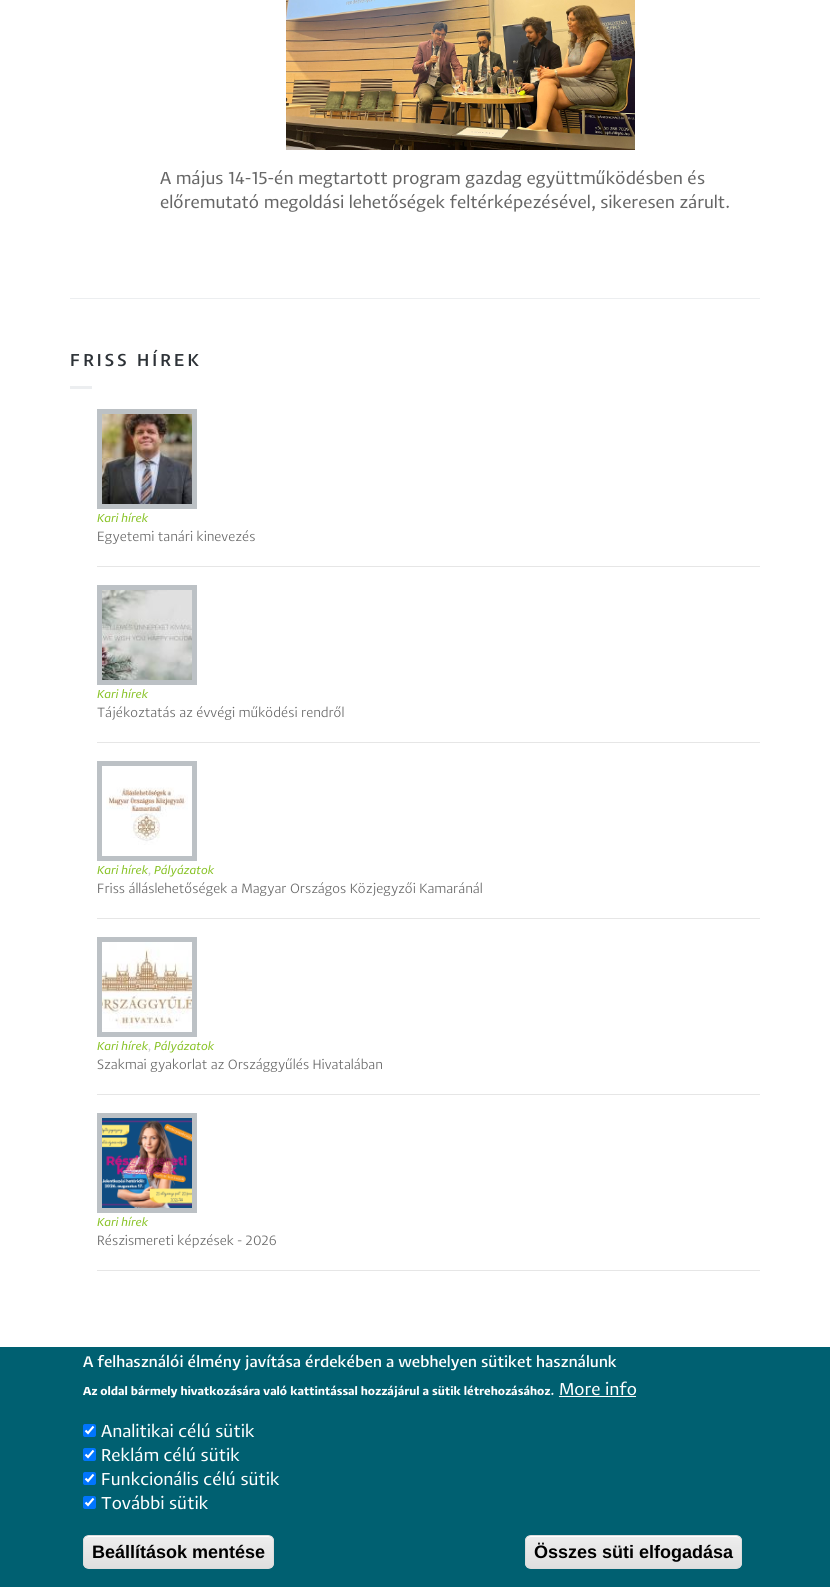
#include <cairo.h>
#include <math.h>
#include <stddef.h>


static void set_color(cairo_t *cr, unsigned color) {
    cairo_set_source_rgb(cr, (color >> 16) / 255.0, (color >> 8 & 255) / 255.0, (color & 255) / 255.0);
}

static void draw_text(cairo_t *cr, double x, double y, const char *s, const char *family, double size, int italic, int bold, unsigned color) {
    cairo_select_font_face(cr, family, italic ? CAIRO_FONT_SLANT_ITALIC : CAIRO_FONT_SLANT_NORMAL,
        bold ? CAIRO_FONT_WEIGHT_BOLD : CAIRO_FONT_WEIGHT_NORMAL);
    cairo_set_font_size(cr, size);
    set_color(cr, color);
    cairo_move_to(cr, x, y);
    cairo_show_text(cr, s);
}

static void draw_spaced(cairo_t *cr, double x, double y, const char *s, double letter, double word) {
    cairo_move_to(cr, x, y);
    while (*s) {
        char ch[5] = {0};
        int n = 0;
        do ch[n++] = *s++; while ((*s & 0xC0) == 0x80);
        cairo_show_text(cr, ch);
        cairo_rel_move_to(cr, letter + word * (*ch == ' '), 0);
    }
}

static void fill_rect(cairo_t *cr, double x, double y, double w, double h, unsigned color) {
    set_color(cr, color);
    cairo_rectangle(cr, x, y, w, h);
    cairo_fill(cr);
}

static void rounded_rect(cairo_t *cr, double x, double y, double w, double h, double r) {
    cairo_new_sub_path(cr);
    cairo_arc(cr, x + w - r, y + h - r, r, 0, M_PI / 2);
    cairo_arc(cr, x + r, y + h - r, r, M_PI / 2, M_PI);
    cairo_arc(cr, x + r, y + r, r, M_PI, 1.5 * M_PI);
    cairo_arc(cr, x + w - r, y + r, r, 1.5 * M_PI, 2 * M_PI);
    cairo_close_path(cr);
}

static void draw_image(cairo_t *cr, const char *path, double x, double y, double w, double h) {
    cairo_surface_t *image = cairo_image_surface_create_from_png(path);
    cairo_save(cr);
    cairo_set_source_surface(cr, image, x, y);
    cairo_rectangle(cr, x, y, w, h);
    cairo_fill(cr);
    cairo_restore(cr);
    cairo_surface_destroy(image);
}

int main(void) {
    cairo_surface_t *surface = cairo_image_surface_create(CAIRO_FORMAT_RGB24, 830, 1587);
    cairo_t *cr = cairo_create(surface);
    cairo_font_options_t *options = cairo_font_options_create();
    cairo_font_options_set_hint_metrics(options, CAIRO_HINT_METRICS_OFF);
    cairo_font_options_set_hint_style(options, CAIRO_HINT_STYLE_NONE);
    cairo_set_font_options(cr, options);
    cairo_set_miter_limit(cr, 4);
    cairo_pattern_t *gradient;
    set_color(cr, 0xFFFFFF);
    cairo_paint(cr);
    fill_rect(cr, 70, 298, 690, 1, 0xECEEF0);
    draw_image(cr, "assets/img1.png", 286, 0, 349, 150);
    draw_text(cr, 160, 184, "A május 14-15-én megtartott program gazdag együttműködésben és", "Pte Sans", 18, 0, 0, 0x666666);
    draw_text(cr, 160, 208, "előremutató megoldási lehetőségek feltérképezésével, sikeresen zárult.", "Pte Sans", 18, 0, 0, 0x666666);
    cairo_select_font_face(cr, "Pte Sans Medium", CAIRO_FONT_SLANT_NORMAL, CAIRO_FONT_WEIGHT_NORMAL);
    set_color(cr, 0x2D3237);
    draw_spaced(cr, 70, 366, "FRISS HÍREK", 3, 0);
    fill_rect(cr, 70, 386, 22, 3, 0xECEEF0);
    cairo_rectangle(cr, 99.5, 411.5, 95, 95);
    set_color(cr, 0xBCC1C5);
    cairo_set_line_width(cr, 5);
    cairo_stroke(cr);
    draw_image(cr, "assets/img2.png", 102, 414, 90, 90);
    draw_text(cr, 97, 522, "Kari hírek", "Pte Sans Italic", 12, 1, 0, 0x87C224);
    draw_text(cr, 97, 541, "Egyetemi tanári kinevezés", "Pte Sans Light", 14, 0, 0, 0x666666);
    fill_rect(cr, 97, 566, 663, 1, 0xE6E6E6);
    cairo_rectangle(cr, 99.5, 587.5, 95, 95);
    set_color(cr, 0xBCC1C5);
    cairo_stroke(cr);
    draw_image(cr, "assets/img3.png", 102, 590, 90, 90);
    draw_text(cr, 97, 698, "Kari hírek", "Pte Sans Italic", 12, 1, 0, 0x87C224);
    draw_text(cr, 97, 717, "Tájékoztatás az évvégi működési rendről", "Pte Sans Light", 14, 0, 0, 0x666666);
    fill_rect(cr, 97, 742, 663, 1, 0xE6E6E6);
    cairo_rectangle(cr, 99.5, 763.5, 95, 95);
    set_color(cr, 0xBCC1C5);
    cairo_stroke(cr);
    draw_image(cr, "assets/img4.png", 106, 787, 82, 58);
    draw_text(cr, 97, 874, "Kari hírek", "Pte Sans Italic", 12, 1, 0, 0x87C224);
    draw_text(cr, 148, 874, ",", "Pte Sans Italic", 12, 1, 0, 0xCCCCCC);
    draw_text(cr, 154, 874, "Pályázatok", "Pte Sans Italic", 12, 1, 0, 0x87C224);
    draw_text(cr, 97, 893, "Friss álláslehetőségek a Magyar Országos Közjegyzői Kamaránál", "Pte Sans Light", 14, 0, 0, 0x666666);
    fill_rect(cr, 97, 918, 663, 1, 0xE6E6E6);
    cairo_rectangle(cr, 99.5, 939.5, 95, 95);
    set_color(cr, 0xBCC1C5);
    cairo_stroke(cr);
    draw_image(cr, "assets/img5.png", 102, 942, 90, 87);
    draw_text(cr, 97, 1050, "Kari hírek", "Pte Sans Italic", 12, 1, 0, 0x87C224);
    draw_text(cr, 148, 1050, ",", "Pte Sans Italic", 12, 1, 0, 0xCCCCCC);
    draw_text(cr, 154, 1050, "Pályázatok", "Pte Sans Italic", 12, 1, 0, 0x87C224);
    draw_text(cr, 97, 1069, "Szakmai gyakorlat az Országgyűlés Hivatalában", "Pte Sans Light", 14, 0, 0, 0x666666);
    fill_rect(cr, 97, 1094, 663, 1, 0xE6E6E6);
    cairo_rectangle(cr, 99.5, 1115.5, 95, 95);
    set_color(cr, 0xBCC1C5);
    cairo_stroke(cr);
    draw_image(cr, "assets/img6.png", 102, 1118, 90, 90);
    draw_text(cr, 97, 1226, "Kari hírek", "Pte Sans Italic", 12, 1, 0, 0x87C224);
    draw_text(cr, 97, 1245, "Részismereti képzések - 2026", "Pte Sans Light", 14, 0, 0, 0x666666);
    fill_rect(cr, 97, 1270, 663, 1, 0xE6E6E6);
    fill_rect(cr, 0, 1347, 830, 240, 0x006071);
    draw_text(cr, 83, 1367, "A felhasználói élmény javítása érdekében a webhelyen sütiket használunk", "Pte Sans Medium", 16, 0, 0, 0xFFFFFF);
    draw_text(cr, 83, 1395, "Az oldal bármely hivatkozására való kattintással hozzájárul a sütik létrehozásához.", "Pte Sans", 12, 0, 1, 0xFFFFFF);
    draw_text(cr, 559, 1395, "More info", "Pte Sans", 18, 0, 0, 0xFFFFFF);
    fill_rect(cr, 559, 1396, 77, 1, 0xFFFFFF);
    set_color(cr, 0x0075FF);
    rounded_rect(cr, 83, 1424, 13, 13, 2);
    cairo_fill(cr);
    cairo_new_path(cr);
    cairo_move_to(cr, 85.5, 1430.5);
    cairo_line_to(cr, 88, 1433);
    cairo_line_to(cr, 93.5, 1426.5);
    set_color(cr, 0xFFFFFF);
    cairo_set_line_width(cr, 2.1);
    cairo_stroke(cr);
    draw_text(cr, 101, 1437, "Analitikai célú sütik", "Pte Sans", 18, 0, 0, 0xFFFFFF);
    set_color(cr, 0x0075FF);
    rounded_rect(cr, 83, 1448, 13, 13, 2);
    cairo_fill(cr);
    cairo_new_path(cr);
    cairo_move_to(cr, 85.5, 1454.5);
    cairo_line_to(cr, 88, 1457);
    cairo_line_to(cr, 93.5, 1450.5);
    set_color(cr, 0xFFFFFF);
    cairo_stroke(cr);
    draw_text(cr, 101, 1461, "Reklám célú sütik", "Pte Sans", 18, 0, 0, 0xFFFFFF);
    set_color(cr, 0x0075FF);
    rounded_rect(cr, 83, 1472, 13, 13, 2);
    cairo_fill(cr);
    cairo_new_path(cr);
    cairo_move_to(cr, 85.5, 1478.5);
    cairo_line_to(cr, 88, 1481);
    cairo_line_to(cr, 93.5, 1474.5);
    set_color(cr, 0xFFFFFF);
    cairo_stroke(cr);
    draw_text(cr, 101, 1485, "Funkcionális célú sütik", "Pte Sans", 18, 0, 0, 0xFFFFFF);
    set_color(cr, 0x0075FF);
    rounded_rect(cr, 83, 1496, 13, 13, 2);
    cairo_fill(cr);
    cairo_new_path(cr);
    cairo_move_to(cr, 85.5, 1502.5);
    cairo_line_to(cr, 88, 1505);
    cairo_line_to(cr, 93.5, 1498.5);
    set_color(cr, 0xFFFFFF);
    cairo_stroke(cr);
    draw_text(cr, 101, 1509, "További sütik", "Pte Sans", 18, 0, 0, 0xFFFFFF);
    cairo_save(cr);
    rounded_rect(cr, 83, 1535, 191, 34, 6);
    cairo_clip(cr);
    gradient = cairo_pattern_create_linear(179, 1536, 179, 1568);
    cairo_pattern_add_color_stop_rgba(gradient, 0.05, 0.929, 0.929, 0.929, 1);
    cairo_pattern_add_color_stop_rgba(gradient, 1, 0.875, 0.875, 0.875, 1);
    cairo_set_source(cr, gradient);
    cairo_pattern_destroy(gradient);
    cairo_rectangle(cr, 83, 1536, 191, 32);
    cairo_fill(cr);
    cairo_restore(cr);
    cairo_new_path(cr);
    cairo_move_to(cr, 89, 1537);
    cairo_line_to(cr, 268, 1537);
    cairo_curve_to(cr, 271, 1537, 273, 1539, 273, 1542);
    cairo_curve_to(cr, 273, 1539, 272, 1537, 269, 1536);
    cairo_line_to(cr, 88, 1536);
    cairo_curve_to(cr, 85, 1537, 84, 1539, 84, 1542);
    cairo_curve_to(cr, 84, 1539, 86, 1537, 89, 1537);
    cairo_close_path(cr);
    cairo_fill(cr);
    rounded_rect(cr, 83.5, 1535.5, 190, 33, 5.5);
    set_color(cr, 0xDCDCDC);
    cairo_set_line_width(cr, 1);
    cairo_stroke(cr);
    draw_text(cr, 92, 1558, "Beállítások mentése", "Liberation Sans", 18, 0, 1, 0x000000);
    cairo_save(cr);
    rounded_rect(cr, 525, 1535, 217, 34, 6);
    cairo_clip(cr);
    gradient = cairo_pattern_create_linear(634, 1536, 634, 1568);
    cairo_pattern_add_color_stop_rgba(gradient, 0.05, 0.929, 0.929, 0.929, 1);
    cairo_pattern_add_color_stop_rgba(gradient, 1, 0.875, 0.875, 0.875, 1);
    cairo_set_source(cr, gradient);
    cairo_pattern_destroy(gradient);
    cairo_rectangle(cr, 525, 1536, 217, 32);
    cairo_fill(cr);
    cairo_restore(cr);
    set_color(cr, 0xFFFFFF);
    cairo_new_path(cr);
    cairo_move_to(cr, 531, 1537);
    cairo_line_to(cr, 736, 1537);
    cairo_curve_to(cr, 739, 1537, 741, 1539, 741, 1542);
    cairo_curve_to(cr, 741, 1539, 739, 1536, 736, 1536);
    cairo_line_to(cr, 530, 1536);
    cairo_curve_to(cr, 527, 1537, 526, 1539, 526, 1542);
    cairo_curve_to(cr, 526, 1539, 528, 1537, 531, 1537);
    cairo_close_path(cr);
    cairo_fill(cr);
    rounded_rect(cr, 525.5, 1535.5, 216, 33, 5.5);
    set_color(cr, 0xDCDCDC);
    cairo_stroke(cr);
    draw_text(cr, 534, 1558, "Összes süti elfogadása", "Liberation Sans", 18, 0, 1, 0x000000);
    cairo_surface_write_to_png(surface, "output.png");
    cairo_font_options_destroy(options);
    cairo_destroy(cr);
    cairo_surface_destroy(surface);
    return 0;
}
